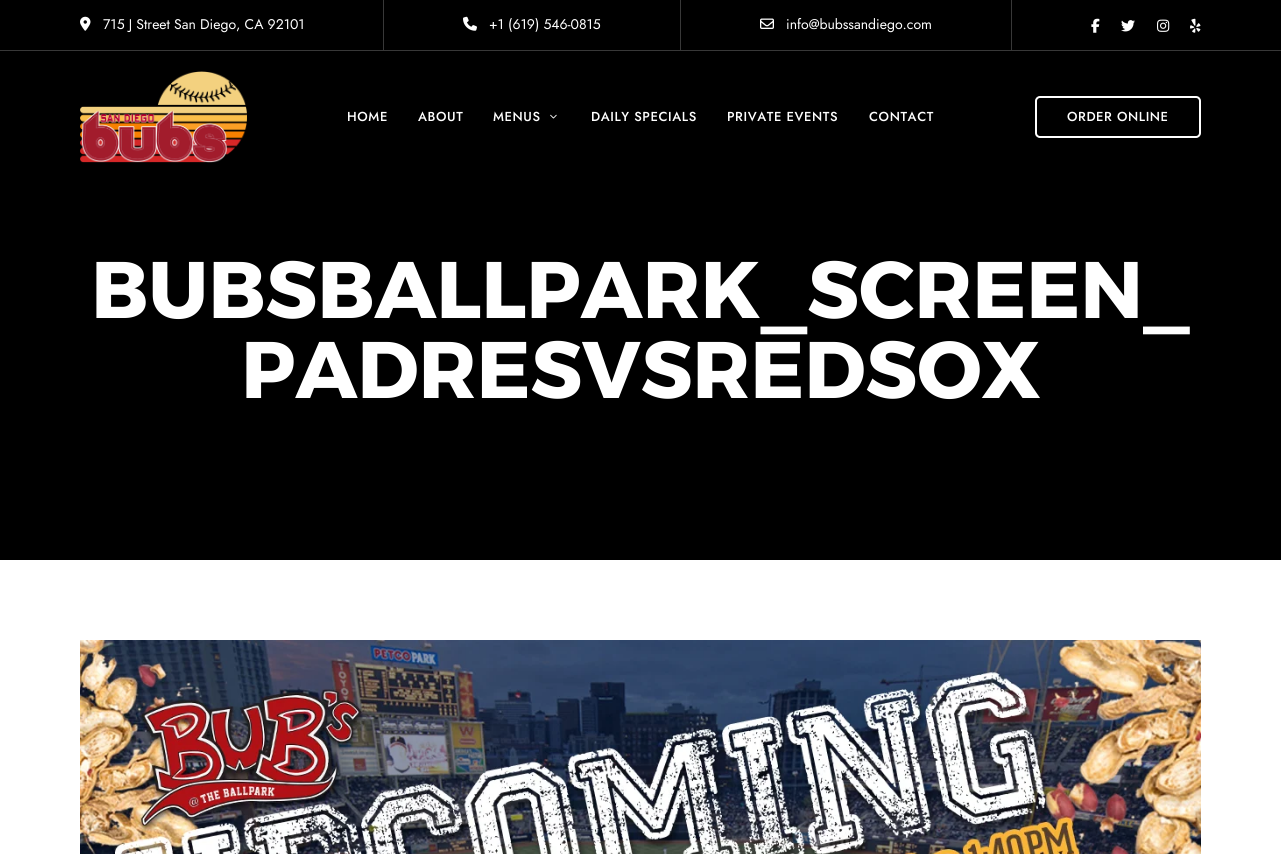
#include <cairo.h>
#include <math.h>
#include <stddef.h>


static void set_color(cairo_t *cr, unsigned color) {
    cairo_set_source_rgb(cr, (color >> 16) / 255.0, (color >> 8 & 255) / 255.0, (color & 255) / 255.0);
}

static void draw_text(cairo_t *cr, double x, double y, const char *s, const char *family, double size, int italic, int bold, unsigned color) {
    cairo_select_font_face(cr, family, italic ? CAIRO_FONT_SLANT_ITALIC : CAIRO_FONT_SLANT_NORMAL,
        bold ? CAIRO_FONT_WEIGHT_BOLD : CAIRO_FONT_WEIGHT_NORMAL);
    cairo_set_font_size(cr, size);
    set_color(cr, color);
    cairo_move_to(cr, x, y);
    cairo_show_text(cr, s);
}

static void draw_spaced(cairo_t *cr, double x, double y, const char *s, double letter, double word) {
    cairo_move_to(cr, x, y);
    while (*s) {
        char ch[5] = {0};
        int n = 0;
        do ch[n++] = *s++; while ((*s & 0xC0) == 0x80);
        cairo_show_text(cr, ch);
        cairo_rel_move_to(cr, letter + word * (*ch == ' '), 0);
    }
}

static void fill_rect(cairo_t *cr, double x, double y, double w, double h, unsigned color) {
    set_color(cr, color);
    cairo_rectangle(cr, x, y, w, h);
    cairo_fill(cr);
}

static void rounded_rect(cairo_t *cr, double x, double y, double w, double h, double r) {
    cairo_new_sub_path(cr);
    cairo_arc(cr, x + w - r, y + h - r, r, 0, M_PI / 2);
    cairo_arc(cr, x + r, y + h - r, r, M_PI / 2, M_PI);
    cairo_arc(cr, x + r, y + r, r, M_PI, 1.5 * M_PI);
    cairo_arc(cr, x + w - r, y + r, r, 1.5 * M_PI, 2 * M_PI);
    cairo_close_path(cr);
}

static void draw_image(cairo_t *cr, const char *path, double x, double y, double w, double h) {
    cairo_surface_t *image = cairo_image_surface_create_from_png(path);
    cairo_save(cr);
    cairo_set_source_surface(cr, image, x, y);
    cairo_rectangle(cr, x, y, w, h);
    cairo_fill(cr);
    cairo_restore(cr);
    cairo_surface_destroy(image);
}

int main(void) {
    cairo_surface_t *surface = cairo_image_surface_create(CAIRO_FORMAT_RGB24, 1281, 854);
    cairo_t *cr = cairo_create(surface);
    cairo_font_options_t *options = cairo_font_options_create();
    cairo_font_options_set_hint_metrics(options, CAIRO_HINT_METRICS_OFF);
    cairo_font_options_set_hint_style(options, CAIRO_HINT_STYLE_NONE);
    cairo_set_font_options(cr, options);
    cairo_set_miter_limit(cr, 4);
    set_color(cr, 0xFFFFFF);
    cairo_paint(cr);
    fill_rect(cr, 0, 0, 1281, 560, 0x000000);
    fill_rect(cr, 0, 50, 1281, 1, 0x383838);
    draw_image(cr, "assets/img1.png", 80, 16, 11, 15);
    draw_text(cr, 103, 29, "715 J Street San Diego, CA 92101", "Jost", 14, 0, 0, 0xFFFFFF);
    fill_rect(cr, 383, 0, 1, 50, 0x383838);
    draw_image(cr, "assets/img2.png", 463, 16, 14, 15);
    draw_text(cr, 489, 29, "+1 (619) 546-0815", "Jost", 14, 0, 0, 0xFFFFFF);
    fill_rect(cr, 680, 0, 1, 50, 0x383838);
    draw_image(cr, "assets/img3.png", 760, 18, 14, 11);
    draw_text(cr, 786, 29, "info@bubssandiego.com", "Jost", 14, 0, 0, 0xFFFFFF);
    fill_rect(cr, 1011, 0, 1, 50, 0x383838);
    draw_image(cr, "assets/img4.png", 1091, 18, 9, 15);
    draw_image(cr, "assets/img5.png", 1121, 20, 14, 12);
    draw_image(cr, "assets/img6.png", 1157, 19, 13, 13);
    draw_image(cr, "assets/img7.png", 1190, 18, 11, 15);
    draw_image(cr, "assets/img8.png", 80, 71, 167, 92);
    cairo_select_font_face(cr, "Jost Medium", CAIRO_FONT_SLANT_NORMAL, CAIRO_FONT_WEIGHT_NORMAL);
    cairo_set_font_size(cr, 13);
    set_color(cr, 0xFFFFFF);
    draw_spaced(cr, 347, 121, "HOME", 0.6, 0);
    draw_spaced(cr, 418, 121, "ABOUT", 0.6, 0);
    draw_spaced(cr, 493, 121, "MENUS", 0.6, 0);
    draw_image(cr, "assets/img9.png", 550, 114, 7, 5);
    draw_spaced(cr, 591, 121, "DAILY SPECIALS", 0.6, 0);
    draw_spaced(cr, 727, 121, "PRIVATE EVENTS", 0.6, 0);
    draw_spaced(cr, 869, 121, "CONTACT", 0.6, 0);
    rounded_rect(cr, 1036, 97, 164, 40, 4);
    cairo_stroke(cr);
    draw_spaced(cr, 1067, 121, "ORDER ONLINE", 0.6, 0);
    draw_text(cr, 91, 318, "BUBSBALLPARK_SCREEN_", "Alexandria", 80, 0, 1, 0xFFFFFF);
    draw_text(cr, 241, 398, "PADRESVSREDSOX", "Alexandria", 80, 0, 1, 0xFFFFFF);
    draw_image(cr, "assets/img10.png", 80, 640, 1121, 214);
    cairo_surface_write_to_png(surface, "output.png");
    cairo_font_options_destroy(options);
    cairo_destroy(cr);
    cairo_surface_destroy(surface);
    return 0;
}
